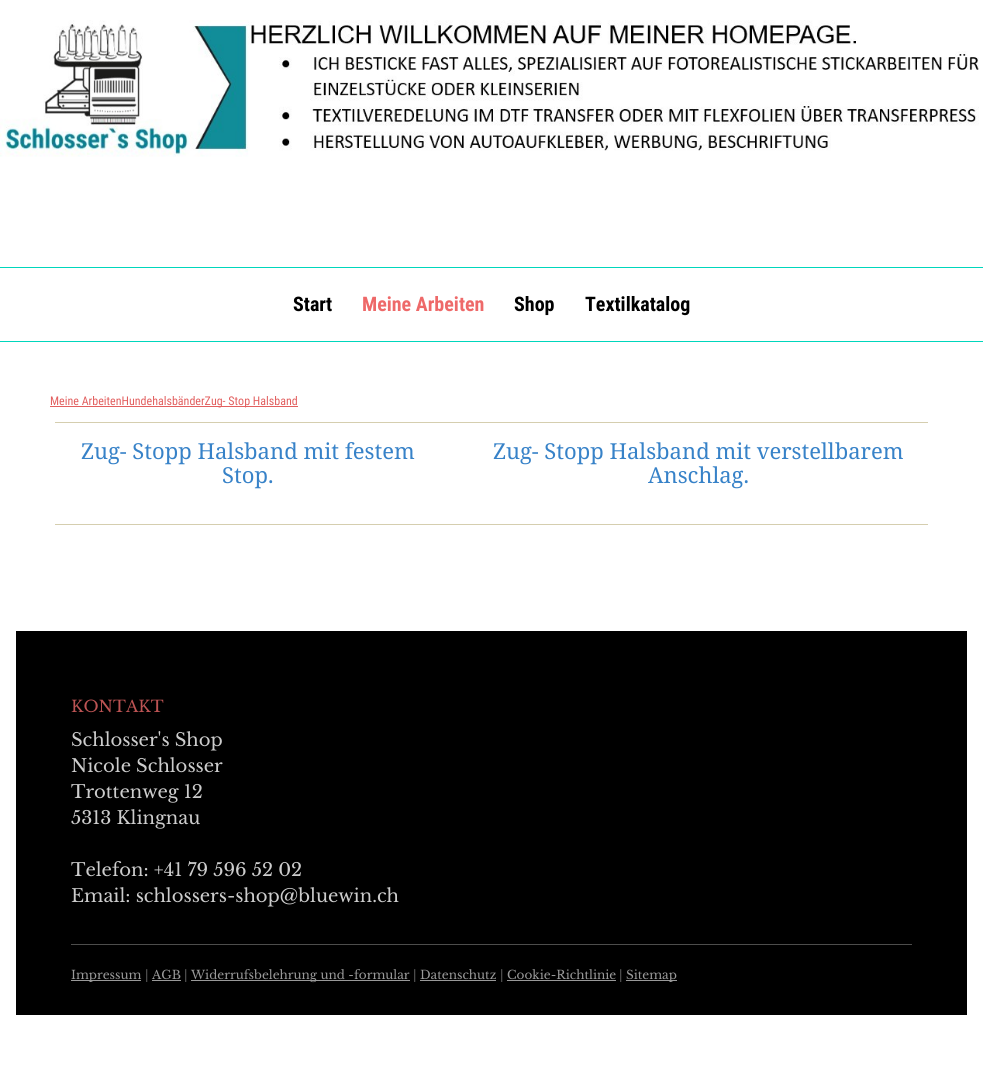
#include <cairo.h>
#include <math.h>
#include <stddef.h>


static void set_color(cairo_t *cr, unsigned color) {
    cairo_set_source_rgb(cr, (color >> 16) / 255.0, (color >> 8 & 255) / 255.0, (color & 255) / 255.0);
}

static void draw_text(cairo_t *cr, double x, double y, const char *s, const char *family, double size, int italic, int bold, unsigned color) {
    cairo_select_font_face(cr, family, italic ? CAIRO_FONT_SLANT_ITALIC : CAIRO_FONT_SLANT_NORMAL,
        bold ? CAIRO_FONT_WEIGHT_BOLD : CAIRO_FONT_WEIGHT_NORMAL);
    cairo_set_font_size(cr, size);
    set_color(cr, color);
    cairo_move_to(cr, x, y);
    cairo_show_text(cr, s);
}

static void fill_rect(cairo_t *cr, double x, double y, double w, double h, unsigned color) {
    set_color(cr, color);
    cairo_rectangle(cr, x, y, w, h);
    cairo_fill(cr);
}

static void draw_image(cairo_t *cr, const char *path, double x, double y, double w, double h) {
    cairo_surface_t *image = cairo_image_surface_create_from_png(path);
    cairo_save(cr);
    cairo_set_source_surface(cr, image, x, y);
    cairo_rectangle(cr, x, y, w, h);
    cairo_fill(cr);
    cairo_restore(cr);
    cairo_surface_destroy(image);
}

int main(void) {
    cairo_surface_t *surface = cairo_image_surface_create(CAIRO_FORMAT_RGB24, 983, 1089);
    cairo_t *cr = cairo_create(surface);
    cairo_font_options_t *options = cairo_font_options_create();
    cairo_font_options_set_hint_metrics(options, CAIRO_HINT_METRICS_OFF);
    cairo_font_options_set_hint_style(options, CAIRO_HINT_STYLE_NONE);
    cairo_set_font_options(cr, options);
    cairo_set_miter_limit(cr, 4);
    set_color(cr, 0xFFFFFF);
    cairo_paint(cr);
    draw_image(cr, "assets/img1.png", 0, 20, 979, 137);
    fill_rect(cr, 0, 267, 983, 1, 0x00D6BC);
    draw_text(cr, 293, 311, "Start", "Roboto Condensed", 20, 0, 1, 0x000000);
    draw_text(cr, 362, 311, "Meine Arbeiten", "Roboto Condensed", 20, 0, 1, 0xEE6969);
    draw_text(cr, 514, 311, "Shop", "Roboto Condensed", 20, 0, 1, 0x000000);
    draw_text(cr, 585, 311, "Textilkatalog", "Roboto Condensed", 20, 0, 1, 0x000000);
    fill_rect(cr, 0, 341, 983, 1, 0x00D6BC);
    fill_rect(cr, 50, 406, 248, 1, 0xE25F5F);
    draw_text(cr, 50, 405, "Meine ArbeitenHundehalsbänderZug- Stop Halsband", "Roboto Condensed", 12, 0, 0, 0xE25F5F);
    fill_rect(cr, 55, 422, 873, 1, 0xD5CEAF);
    draw_text(cr, 81, 459, "Zug- Stopp Halsband mit festem", "Noto Serif", 22, 0, 0, 0x3782C8);
    draw_text(cr, 222, 483, "Stop.", "Noto Serif", 22, 0, 0, 0x3782C8);
    draw_text(cr, 493, 459, "Zug- Stopp Halsband mit verstellbarem", "Noto Serif", 22, 0, 0, 0x3782C8);
    draw_text(cr, 648, 483, "Anschlag.", "Noto Serif", 22, 0, 0, 0x3782C8);
    fill_rect(cr, 55, 524, 873, 1, 0xD5CEAF);
    fill_rect(cr, 16, 631, 951, 384, 0x000000);
    draw_text(cr, 71, 712, "KONTAKT", "Libre Baskerville", 16, 0, 0, 0xBC5353);
    draw_text(cr, 71, 746, "Schlosser's Shop", "Libre Baskerville", 18, 0, 0, 0xCCCCCC);
    draw_text(cr, 71, 772, "Nicole Schlosser", "Libre Baskerville", 18, 0, 0, 0xCCCCCC);
    draw_text(cr, 71, 798, "Trottenweg 12", "Libre Baskerville", 18, 0, 0, 0xCCCCCC);
    draw_text(cr, 71, 824, "5313 Klingnau", "Libre Baskerville", 18, 0, 0, 0xCCCCCC);
    draw_text(cr, 71, 876, "Telefon: +41 79 596 52 02", "Libre Baskerville", 18, 0, 0, 0xCCCCCC);
    draw_text(cr, 71, 902, "Email: schlossers-shop@bluewin.ch", "Libre Baskerville", 18, 0, 0, 0xCCCCCC);
    fill_rect(cr, 71, 944, 841, 1, 0x4D4D4C);
    fill_rect(cr, 71, 980, 70, 1, 0x999999);
    draw_text(cr, 71, 979, "Impressum", "Libre Baskerville", 12, 0, 0, 0x999999);
    draw_text(cr, 145, 979, "|", "Libre Baskerville", 12, 0, 0, 0x666666);
    draw_text(cr, 152, 979, "AGB", "Libre Baskerville", 12, 0, 0, 0x999999);
    fill_rect(cr, 152, 980, 29, 1, 0x999999);
    draw_text(cr, 184, 979, "|", "Libre Baskerville", 12, 0, 0, 0x666666);
    fill_rect(cr, 191, 980, 219, 1, 0x999999);
    draw_text(cr, 191, 979, "Widerrufsbelehrung und -formular", "Libre Baskerville", 12, 0, 0, 0x999999);
    draw_text(cr, 413, 979, "|", "Libre Baskerville", 12, 0, 0, 0x666666);
    draw_text(cr, 420, 979, "Datenschutz", "Libre Baskerville", 12, 0, 0, 0x999999);
    fill_rect(cr, 420, 980, 76, 1, 0x999999);
    draw_text(cr, 500, 979, "|", "Libre Baskerville", 12, 0, 0, 0x666666);
    draw_text(cr, 507, 979, "Cookie-Richtlinie", "Libre Baskerville", 12, 0, 0, 0x999999);
    fill_rect(cr, 507, 980, 109, 1, 0x999999);
    draw_text(cr, 619, 979, "|", "Libre Baskerville", 12, 0, 0, 0x666666);
    fill_rect(cr, 626, 980, 51, 1, 0x999999);
    draw_text(cr, 626, 979, "Sitemap", "Libre Baskerville", 12, 0, 0, 0x999999);
    cairo_surface_write_to_png(surface, "output.png");
    cairo_font_options_destroy(options);
    cairo_destroy(cr);
    cairo_surface_destroy(surface);
    return 0;
}
